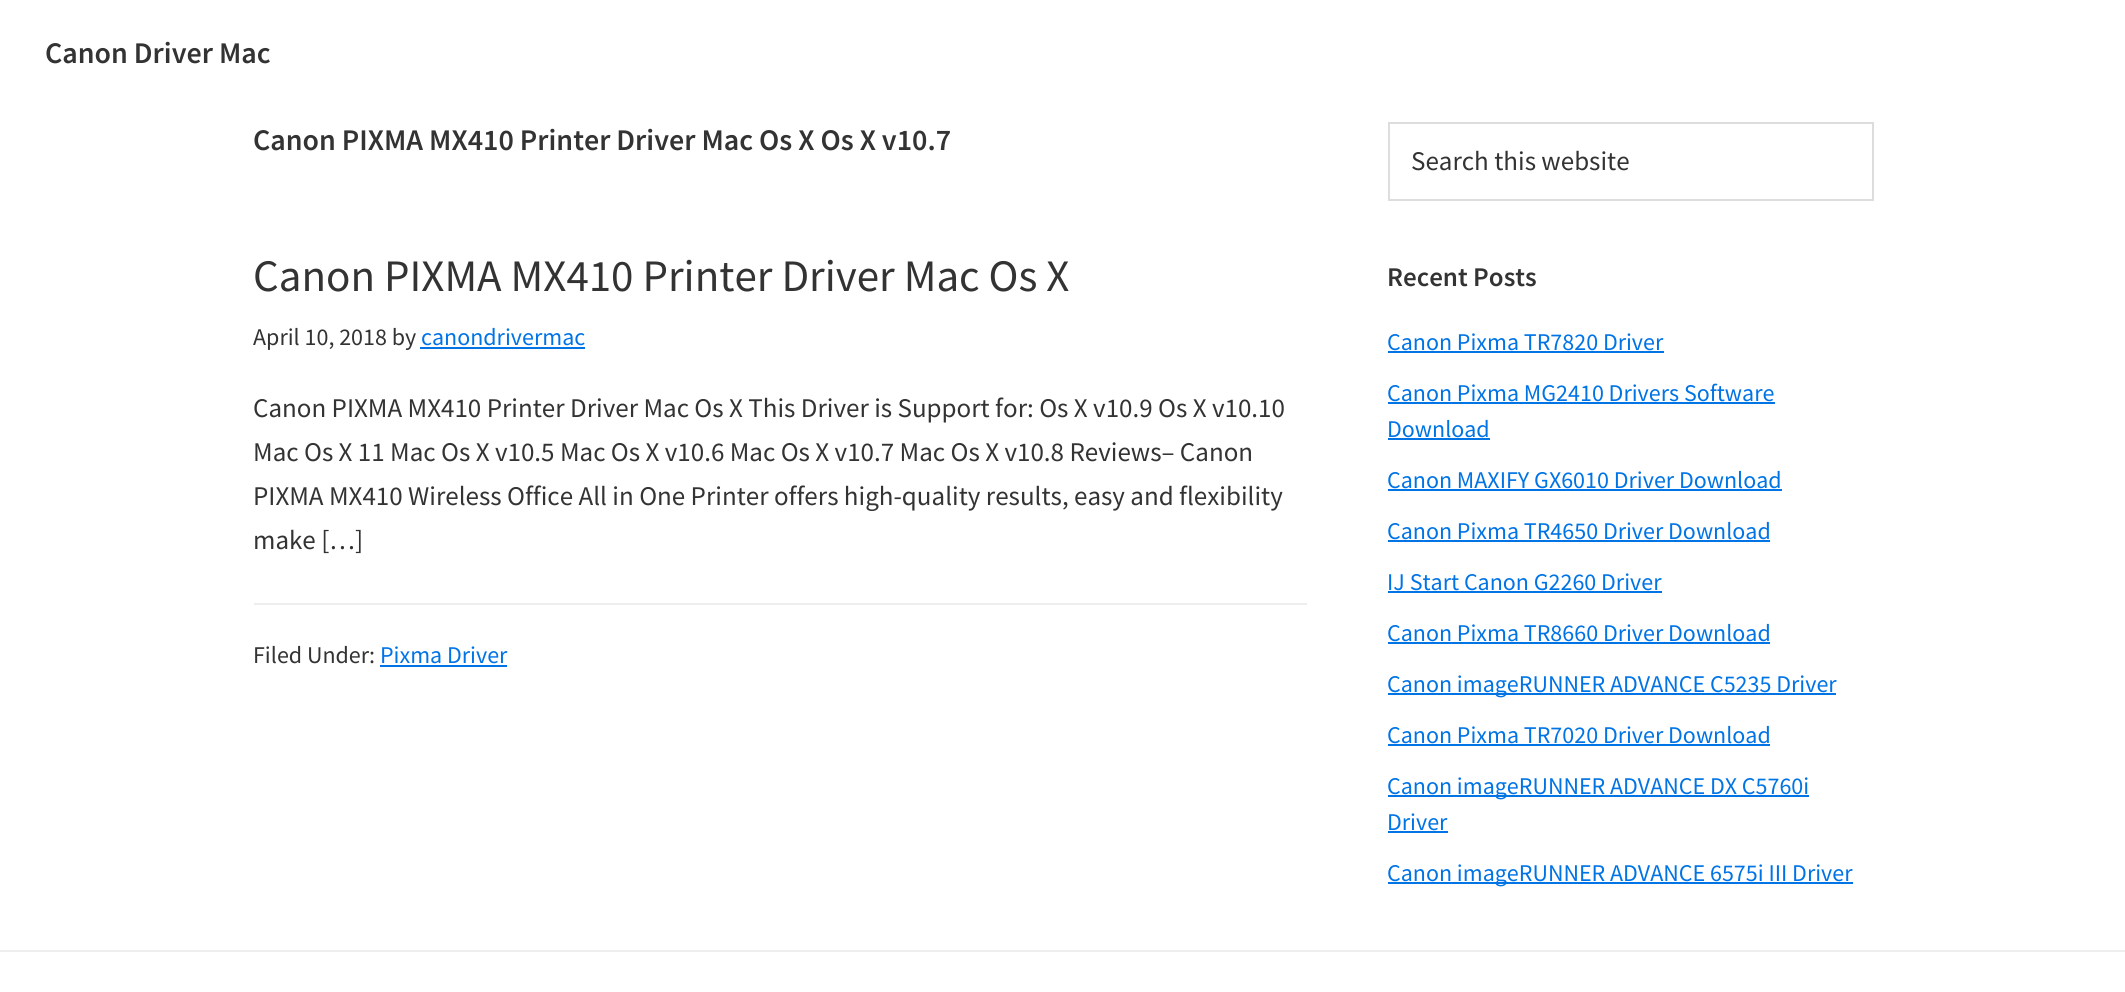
#include <cairo.h>
#include <math.h>
#include <stddef.h>


static void set_color(cairo_t *cr, unsigned color) {
    cairo_set_source_rgb(cr, (color >> 16) / 255.0, (color >> 8 & 255) / 255.0, (color & 255) / 255.0);
}

static void draw_text(cairo_t *cr, double x, double y, const char *s, const char *family, double size, int italic, int bold, unsigned color) {
    cairo_select_font_face(cr, family, italic ? CAIRO_FONT_SLANT_ITALIC : CAIRO_FONT_SLANT_NORMAL,
        bold ? CAIRO_FONT_WEIGHT_BOLD : CAIRO_FONT_WEIGHT_NORMAL);
    cairo_set_font_size(cr, size);
    set_color(cr, color);
    cairo_move_to(cr, x, y);
    cairo_show_text(cr, s);
}

static void fill_rect(cairo_t *cr, double x, double y, double w, double h, unsigned color) {
    set_color(cr, color);
    cairo_rectangle(cr, x, y, w, h);
    cairo_fill(cr);
}

int main(void) {
    cairo_surface_t *surface = cairo_image_surface_create(CAIRO_FORMAT_RGB24, 2125, 992);
    cairo_t *cr = cairo_create(surface);
    cairo_font_options_t *options = cairo_font_options_create();
    cairo_font_options_set_hint_metrics(options, CAIRO_HINT_METRICS_OFF);
    cairo_font_options_set_hint_style(options, CAIRO_HINT_STYLE_NONE);
    cairo_set_font_options(cr, options);
    cairo_set_miter_limit(cr, 4);
    set_color(cr, 0xFFFFFF);
    cairo_paint(cr);
    draw_text(cr, 45, 63, "Canon Driver Mac", "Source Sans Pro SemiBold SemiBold", 30, 0, 0, 0x333333);
    draw_text(cr, 253, 150, "Canon PIXMA MX410 Printer Driver Mac Os X Os X v10.7", "Source Sans Pro SemiBold SemiBold", 30, 0, 0, 0x333333);
    draw_text(cr, 253, 291, "Canon PIXMA MX410 Printer Driver Mac Os X", "Source Sans Pro", 45, 0, 0, 0x333333);
    draw_text(cr, 253, 345, "April 10, 2018 by", "Source Sans Pro", 24, 0, 0, 0x333333);
    draw_text(cr, 421, 345, "canondrivermac", "Source Sans Pro", 24, 0, 0, 0x0073E5);
    fill_rect(cr, 420, 347, 165, 2, 0x0073E5);
    draw_text(cr, 253, 417, "Canon PIXMA MX410 Printer Driver Mac Os X This Driver is Support for: Os X v10.9 Os X v10.10", "Source Sans Pro", 27, 0, 0, 0x333333);
    draw_text(cr, 253, 461, "Mac Os X 11 Mac Os X v10.5 Mac Os X v10.6 Mac Os X v10.7 Mac Os X v10.8 Reviews– Canon", "Source Sans Pro", 27, 0, 0, 0x333333);
    draw_text(cr, 253, 505, "PIXMA MX410 Wireless Office All in One Printer offers high-quality results, easy and flexibility", "Source Sans Pro", 27, 0, 0, 0x333333);
    draw_text(cr, 253, 549, "make […]", "Source Sans Pro", 27, 0, 0, 0x333333);
    fill_rect(cr, 254, 603, 1053, 2, 0xEEEEEE);
    draw_text(cr, 253, 663, "Filed Under:", "Source Sans Pro", 24, 0, 0, 0x333333);
    draw_text(cr, 380, 663, "Pixma Driver", "Source Sans Pro", 24, 0, 0, 0x0073E5);
    fill_rect(cr, 380, 665, 127, 2, 0x0073E5);
    cairo_rectangle(cr, 1389, 123, 484, 77);
    set_color(cr, 0xDDDDDD);
    cairo_stroke(cr);
    draw_text(cr, 1411, 170, "Search this website", "Source Sans Pro", 27, 0, 0, 0x333333);
    draw_text(cr, 1387, 286, "Recent Posts", "Source Sans Pro SemiBold SemiBold", 27, 0, 0, 0x333333);
    draw_text(cr, 1387, 350, "Canon Pixma TR7820 Driver", "Source Sans Pro", 24, 0, 0, 0x0073E5);
    fill_rect(cr, 1388, 351, 276, 2, 0x0073E5);
    draw_text(cr, 1387, 401, "Canon Pixma MG2410 Drivers Software", "Source Sans Pro", 24, 0, 0, 0x0073E5);
    fill_rect(cr, 1388, 402, 387, 2, 0x0073E5);
    draw_text(cr, 1387, 437, "Download", "Source Sans Pro", 24, 0, 0, 0x0073E5);
    fill_rect(cr, 1388, 438, 102, 2, 0x0073E5);
    draw_text(cr, 1387, 488, "Canon MAXIFY GX6010 Driver Download", "Source Sans Pro", 24, 0, 0, 0x0073E5);
    fill_rect(cr, 1388, 489, 394, 2, 0x0073E5);
    draw_text(cr, 1387, 539, "Canon Pixma TR4650 Driver Download", "Source Sans Pro", 24, 0, 0, 0x0073E5);
    fill_rect(cr, 1388, 540, 382, 2, 0x0073E5);
    draw_text(cr, 1387, 590, "IJ Start Canon G2260 Driver", "Source Sans Pro", 24, 0, 0, 0x0073E5);
    fill_rect(cr, 1388, 591, 274, 2, 0x0073E5);
    draw_text(cr, 1387, 641, "Canon Pixma TR8660 Driver Download", "Source Sans Pro", 24, 0, 0, 0x0073E5);
    fill_rect(cr, 1388, 642, 382, 2, 0x0073E5);
    fill_rect(cr, 1388, 693, 448, 2, 0x0073E5);
    draw_text(cr, 1387, 692, "Canon imageRUNNER ADVANCE C5235 Driver", "Source Sans Pro", 24, 0, 0, 0x0073E5);
    draw_text(cr, 1387, 743, "Canon Pixma TR7020 Driver Download", "Source Sans Pro", 24, 0, 0, 0x0073E5);
    fill_rect(cr, 1388, 744, 382, 2, 0x0073E5);
    fill_rect(cr, 1388, 795, 421, 2, 0x0073E5);
    draw_text(cr, 1387, 794, "Canon imageRUNNER ADVANCE DX C5760i", "Source Sans Pro", 24, 0, 0, 0x0073E5);
    draw_text(cr, 1387, 830, "Driver", "Source Sans Pro", 24, 0, 0, 0x0073E5);
    fill_rect(cr, 1388, 831, 60, 2, 0x0073E5);
    fill_rect(cr, 1388, 882, 465, 2, 0x0073E5);
    draw_text(cr, 1387, 881, "Canon imageRUNNER ADVANCE 6575i III Driver", "Source Sans Pro", 24, 0, 0, 0x0073E5);
    fill_rect(cr, 0, 950, 2125, 2, 0xEEEEEE);
    cairo_surface_write_to_png(surface, "output.png");
    cairo_font_options_destroy(options);
    cairo_destroy(cr);
    cairo_surface_destroy(surface);
    return 0;
}
